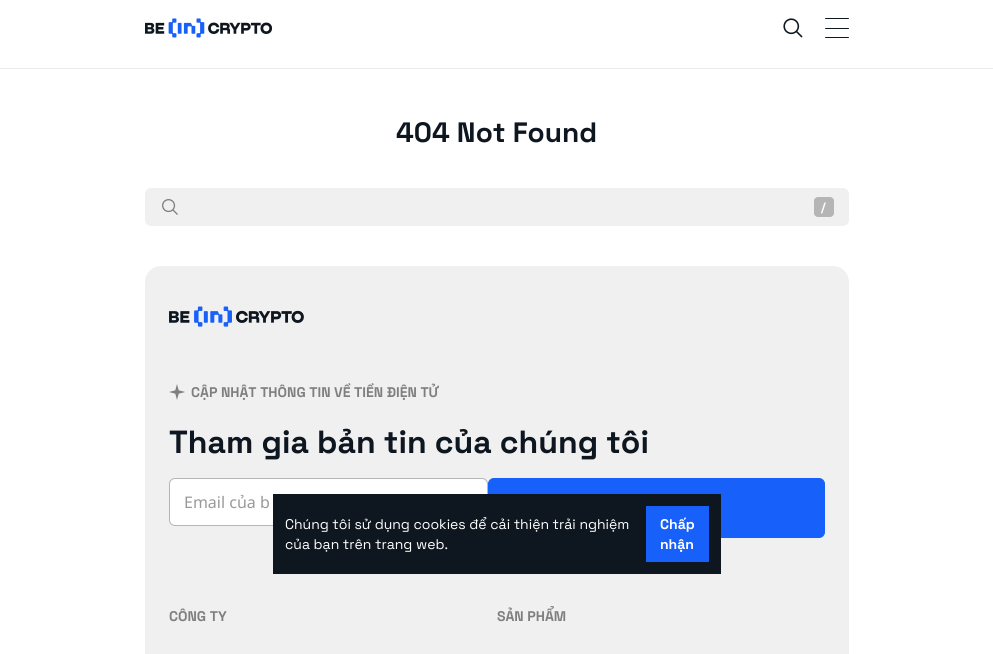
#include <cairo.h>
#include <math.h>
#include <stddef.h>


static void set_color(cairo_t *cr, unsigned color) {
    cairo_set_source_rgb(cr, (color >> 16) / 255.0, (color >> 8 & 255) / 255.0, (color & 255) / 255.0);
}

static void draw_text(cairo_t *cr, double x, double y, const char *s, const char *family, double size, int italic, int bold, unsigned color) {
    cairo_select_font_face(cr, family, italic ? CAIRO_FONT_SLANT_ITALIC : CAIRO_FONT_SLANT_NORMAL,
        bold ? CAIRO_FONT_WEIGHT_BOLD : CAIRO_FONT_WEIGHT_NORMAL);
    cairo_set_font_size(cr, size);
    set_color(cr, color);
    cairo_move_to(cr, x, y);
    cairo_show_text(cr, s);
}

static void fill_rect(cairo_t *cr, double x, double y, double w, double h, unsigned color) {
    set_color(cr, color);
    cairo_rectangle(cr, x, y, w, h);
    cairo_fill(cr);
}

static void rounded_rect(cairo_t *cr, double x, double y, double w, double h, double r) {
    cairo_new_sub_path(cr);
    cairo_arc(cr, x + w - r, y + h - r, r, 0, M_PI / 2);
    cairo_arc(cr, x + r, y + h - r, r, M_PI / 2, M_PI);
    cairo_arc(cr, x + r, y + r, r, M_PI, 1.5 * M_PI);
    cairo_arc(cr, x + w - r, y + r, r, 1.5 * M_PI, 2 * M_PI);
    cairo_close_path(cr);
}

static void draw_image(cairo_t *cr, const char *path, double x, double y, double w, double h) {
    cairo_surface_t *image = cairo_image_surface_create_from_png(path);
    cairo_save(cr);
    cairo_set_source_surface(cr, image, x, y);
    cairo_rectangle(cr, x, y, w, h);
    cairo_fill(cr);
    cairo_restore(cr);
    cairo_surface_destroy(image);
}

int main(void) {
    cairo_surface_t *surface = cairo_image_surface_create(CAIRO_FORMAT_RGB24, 993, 654);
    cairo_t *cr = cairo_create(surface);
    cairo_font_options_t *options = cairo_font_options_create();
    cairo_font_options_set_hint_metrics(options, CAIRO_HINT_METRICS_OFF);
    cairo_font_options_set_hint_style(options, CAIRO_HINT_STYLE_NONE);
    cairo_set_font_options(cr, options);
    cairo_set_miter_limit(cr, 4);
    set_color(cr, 0xFFFFFF);
    cairo_paint(cr);
    fill_rect(cr, 0, 68, 993, 1, 0xEBEBEB);
    draw_image(cr, "assets/img1.png", 145, 18, 128, 20);
    draw_image(cr, "assets/img2.png", 783, 18, 20, 20);
    set_color(cr, 0x0E1620);
    rounded_rect(cr, 825, 18, 24, 1, 0.5);
    cairo_fill(cr);
    rounded_rect(cr, 825, 28, 24, 1, 0.5);
    cairo_fill(cr);
    rounded_rect(cr, 825, 37, 24, 1, 0.5);
    cairo_fill(cr);
    draw_text(cr, 396, 142, "404 Not Found", "Space Grotesk", 28, 0, 1, 0x0E1620);
    set_color(cr, 0xF0F0F0);
    rounded_rect(cr, 145, 188, 704, 38, 6);
    cairo_fill(cr);
    draw_image(cr, "assets/img3.png", 162, 199, 16, 16);
    set_color(cr, 0xB5B5B5);
    rounded_rect(cr, 814, 197, 20, 20, 4);
    cairo_fill(cr);
    draw_text(cr, 821, 211, "/", "Space Grotesk", 12, 0, 1, 0xFFFFFF);
    set_color(cr, 0xF0F0F0);
    rounded_rect(cr, 145, 266, 704, 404, 16);
    cairo_fill(cr);
    draw_image(cr, "assets/img4.png", 169, 306, 135, 21);
    draw_image(cr, "assets/img5.png", 169, 384, 16, 16);
    draw_text(cr, 191, 397, "CẬP NHẬT THÔNG TIN VỀ TIỀN ĐIỆN TỬ", "Space Grotesk", 14, 0, 1, 0x7F7F7F);
    draw_text(cr, 169, 453, "Tham gia bản tin của chúng tôi", "Space Grotesk", 32, 0, 1, 0x0E1620);
    set_color(cr, 0xFFFFFF);
    rounded_rect(cr, 169.5, 478.5, 318, 47, 5.5);
    cairo_fill_preserve(cr);
    set_color(cr, 0xB5B5B5);
    cairo_set_line_width(cr, 1);
    cairo_stroke(cr);
    draw_text(cr, 184, 508, "Email của b", "Noto Sans", 16, 0, 0, 0x999999);
    set_color(cr, 0x1760FA);
    rounded_rect(cr, 488.5, 478.5, 336, 59, 5.5);
    cairo_fill_preserve(cr);
    cairo_stroke(cr);
    draw_text(cr, 169, 621, "CÔNG TY", "Space Grotesk", 14, 0, 1, 0x7F7F7F);
    draw_text(cr, 497, 621, "SẢN PHẨM", "Space Grotesk", 14, 0, 1, 0x7F7F7F);
    fill_rect(cr, 273, 494, 448, 80, 0x0E1620);
    draw_text(cr, 285, 529, "Chúng tôi sử dụng cookies để cải thiện trải nghiệm", "Space Grotesk", 14, 0, 0, 0xFFFFFF);
    draw_text(cr, 285, 549, "của bạn trên trang web.", "Space Grotesk", 14, 0, 0, 0xFFFFFF);
    fill_rect(cr, 646, 506, 63, 56, 0x1760FA);
    draw_text(cr, 660, 529, "Chấp", "Space Grotesk", 14, 0, 1, 0xFFFFFF);
    draw_text(cr, 660, 549, "nhận", "Space Grotesk", 14, 0, 1, 0xFFFFFF);
    cairo_surface_write_to_png(surface, "output.png");
    cairo_font_options_destroy(options);
    cairo_destroy(cr);
    cairo_surface_destroy(surface);
    return 0;
}
